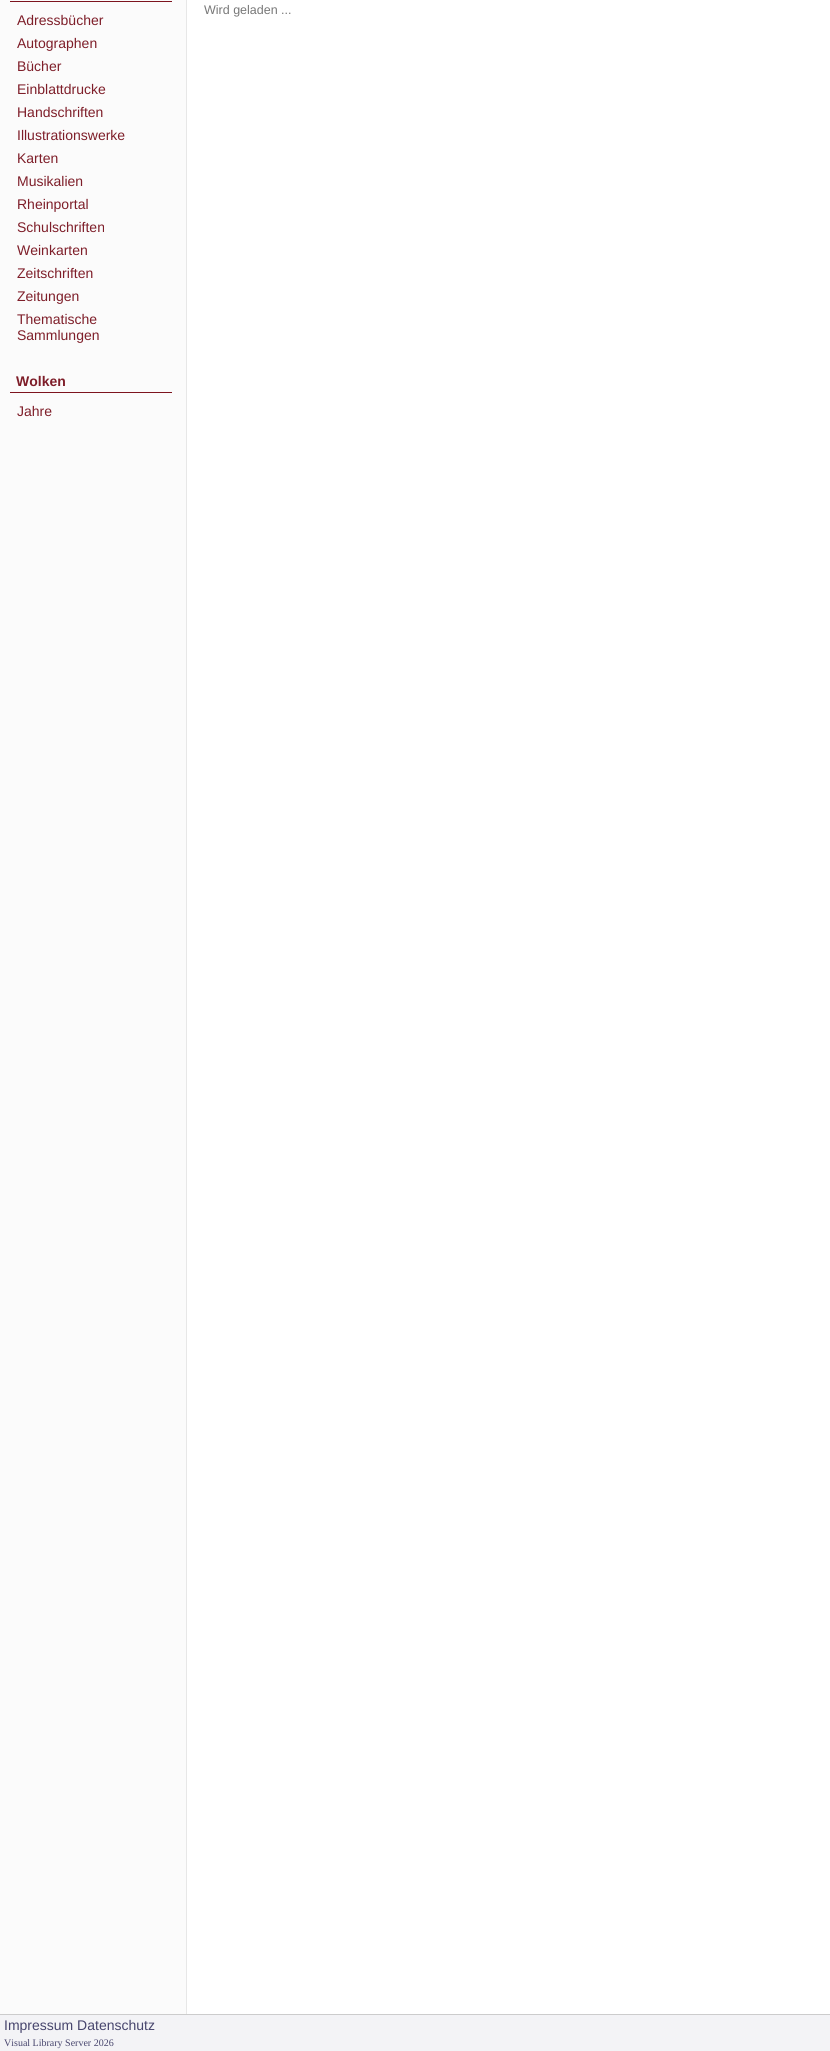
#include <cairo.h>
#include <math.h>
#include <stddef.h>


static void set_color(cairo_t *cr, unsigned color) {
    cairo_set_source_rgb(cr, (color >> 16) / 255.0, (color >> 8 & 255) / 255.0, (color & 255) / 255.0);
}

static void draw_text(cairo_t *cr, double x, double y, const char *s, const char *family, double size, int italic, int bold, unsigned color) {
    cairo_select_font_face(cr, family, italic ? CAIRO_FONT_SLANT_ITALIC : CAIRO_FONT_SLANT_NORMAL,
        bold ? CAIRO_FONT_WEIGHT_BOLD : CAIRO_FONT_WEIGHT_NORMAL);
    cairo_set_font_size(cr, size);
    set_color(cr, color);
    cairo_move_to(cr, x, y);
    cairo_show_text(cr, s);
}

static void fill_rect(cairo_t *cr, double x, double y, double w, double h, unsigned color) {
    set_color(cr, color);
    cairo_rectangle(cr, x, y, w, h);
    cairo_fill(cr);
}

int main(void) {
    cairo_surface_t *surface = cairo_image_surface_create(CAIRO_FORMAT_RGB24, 830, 2051);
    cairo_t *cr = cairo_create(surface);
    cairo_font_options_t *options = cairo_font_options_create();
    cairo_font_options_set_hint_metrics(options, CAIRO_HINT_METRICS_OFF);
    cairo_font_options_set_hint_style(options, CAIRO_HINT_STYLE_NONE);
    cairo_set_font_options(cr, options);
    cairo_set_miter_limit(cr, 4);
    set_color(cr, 0xFFFFFF);
    cairo_paint(cr);
    draw_text(cr, 204, 14, "Wird geladen ...", "Liberation Sans", 12.5, 0, 0, 0x777777);
    fill_rect(cr, 0, 0, 186, 2014, 0xFBFBFB);
    fill_rect(cr, 186, 0, 1, 2014, 0xE7E7E7);
    fill_rect(cr, 10, 1, 162, 1, 0x7D141E);
    draw_text(cr, 17, 25, "Adressbücher", "Liberation Sans", 14, 0, 0, 0x7E1E29);
    draw_text(cr, 17, 48, "Autographen", "Liberation Sans", 14, 0, 0, 0x7E1E29);
    draw_text(cr, 17, 71, "Bücher", "Liberation Sans", 14, 0, 0, 0x7E1E29);
    draw_text(cr, 17, 94, "Einblattdrucke", "Liberation Sans", 14, 0, 0, 0x7E1E29);
    draw_text(cr, 17, 117, "Handschriften", "Liberation Sans", 14, 0, 0, 0x7E1E29);
    draw_text(cr, 17, 140, "Illustrationswerke", "Liberation Sans", 14, 0, 0, 0x7E1E29);
    draw_text(cr, 17, 163, "Karten", "Liberation Sans", 14, 0, 0, 0x7E1E29);
    draw_text(cr, 17, 186, "Musikalien", "Liberation Sans", 14, 0, 0, 0x7E1E29);
    draw_text(cr, 17, 209, "Rheinportal", "Liberation Sans", 14, 0, 0, 0x7E1E29);
    draw_text(cr, 17, 232, "Schulschriften", "Liberation Sans", 14, 0, 0, 0x7E1E29);
    draw_text(cr, 17, 255, "Weinkarten", "Liberation Sans", 14, 0, 0, 0x7E1E29);
    draw_text(cr, 17, 278, "Zeitschriften", "Liberation Sans", 14, 0, 0, 0x7E1E29);
    draw_text(cr, 17, 301, "Zeitungen", "Liberation Sans", 14, 0, 0, 0x7E1E29);
    draw_text(cr, 17, 324, "Thematische", "Liberation Sans", 14, 0, 0, 0x7E1E29);
    draw_text(cr, 17, 340, "Sammlungen", "Liberation Sans", 14, 0, 0, 0x7E1E29);
    fill_rect(cr, 10, 392, 162, 1, 0x7D141E);
    draw_text(cr, 16, 386, "Wolken", "Liberation Sans", 14, 0, 1, 0x7E1E29);
    draw_text(cr, 17, 416, "Jahre", "Liberation Sans", 14, 0, 0, 0x7E1E29);
    fill_rect(cr, 0, 2015, 830, 36, 0xF3F3F6);
    fill_rect(cr, 0, 2014, 830, 1, 0xCCCCCC);
    draw_text(cr, 4, 2030, "Impressum Datenschutz", "Liberation Sans", 14, 0, 0, 0x47456D);
    draw_text(cr, 4, 2046, "Visual Library Server 2026", "Liberation Serif", 10, 0, 0, 0x47456D);
    cairo_surface_write_to_png(surface, "output.png");
    cairo_font_options_destroy(options);
    cairo_destroy(cr);
    cairo_surface_destroy(surface);
    return 0;
}
